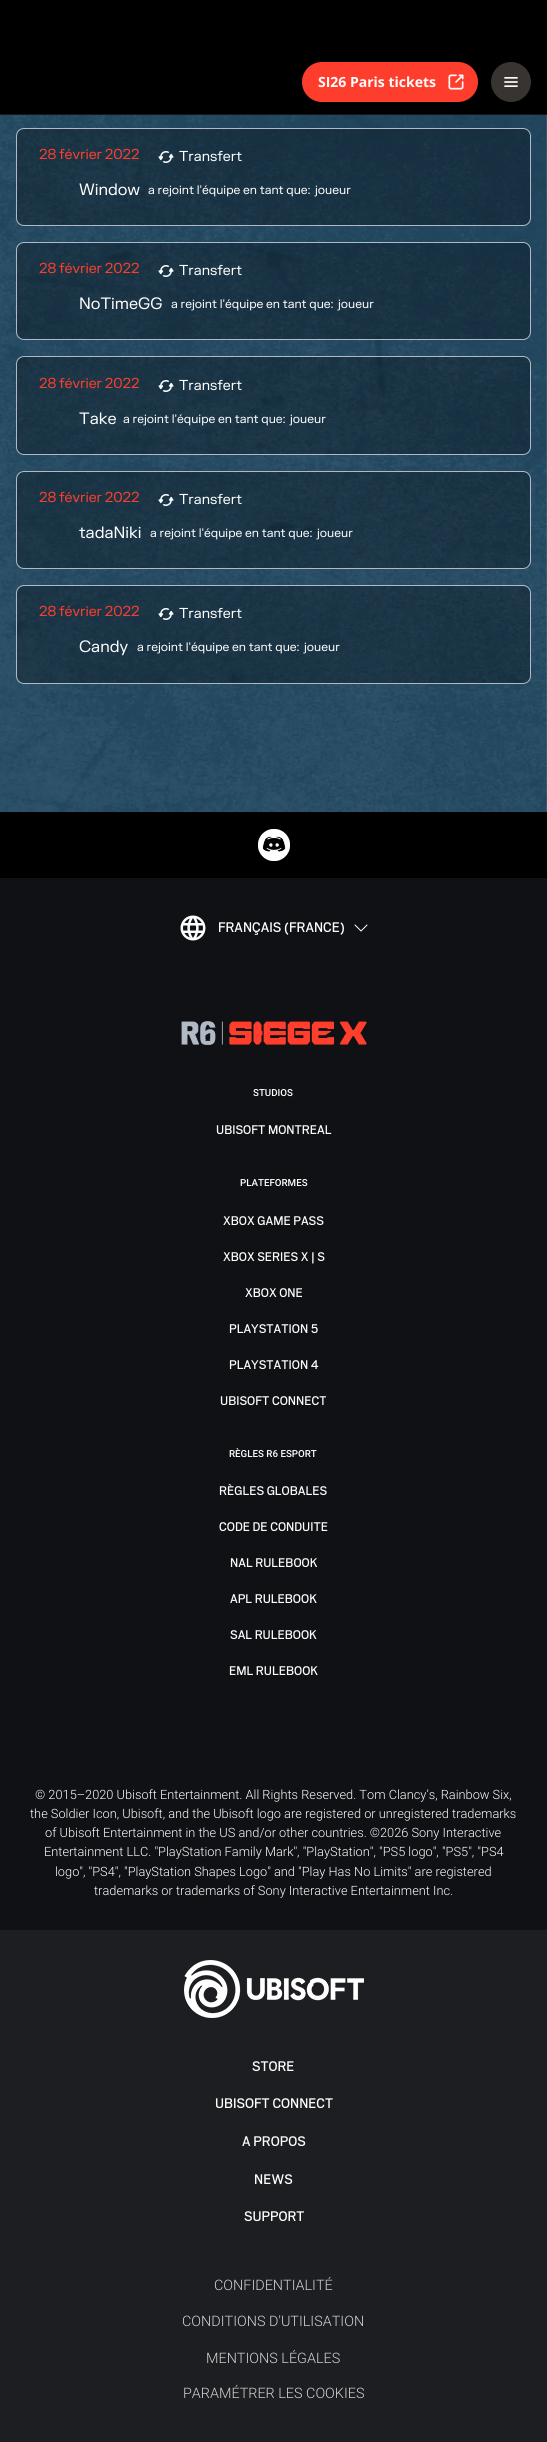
#include <cairo.h>
#include <math.h>
#include <stddef.h>


static void set_color(cairo_t *cr, unsigned color) {
    cairo_set_source_rgb(cr, (color >> 16) / 255.0, (color >> 8 & 255) / 255.0, (color & 255) / 255.0);
}

static void draw_text(cairo_t *cr, double x, double y, const char *s, const char *family, double size, int italic, int bold, unsigned color) {
    cairo_select_font_face(cr, family, italic ? CAIRO_FONT_SLANT_ITALIC : CAIRO_FONT_SLANT_NORMAL,
        bold ? CAIRO_FONT_WEIGHT_BOLD : CAIRO_FONT_WEIGHT_NORMAL);
    cairo_set_font_size(cr, size);
    set_color(cr, color);
    cairo_move_to(cr, x, y);
    cairo_show_text(cr, s);
}

static void draw_spaced(cairo_t *cr, double x, double y, const char *s, double letter, double word) {
    cairo_move_to(cr, x, y);
    while (*s) {
        char ch[5] = {0};
        int n = 0;
        do ch[n++] = *s++; while ((*s & 0xC0) == 0x80);
        cairo_show_text(cr, ch);
        cairo_rel_move_to(cr, letter + word * (*ch == ' '), 0);
    }
}

static void fill_rect(cairo_t *cr, double x, double y, double w, double h, unsigned color) {
    set_color(cr, color);
    cairo_rectangle(cr, x, y, w, h);
    cairo_fill(cr);
}

static void rounded_rect(cairo_t *cr, double x, double y, double w, double h, double r) {
    cairo_new_sub_path(cr);
    cairo_arc(cr, x + w - r, y + h - r, r, 0, M_PI / 2);
    cairo_arc(cr, x + r, y + h - r, r, M_PI / 2, M_PI);
    cairo_arc(cr, x + r, y + r, r, M_PI, 1.5 * M_PI);
    cairo_arc(cr, x + w - r, y + r, r, 1.5 * M_PI, 2 * M_PI);
    cairo_close_path(cr);
}

static void draw_image(cairo_t *cr, const char *path, double x, double y, double w, double h) {
    cairo_surface_t *image = cairo_image_surface_create_from_png(path);
    cairo_save(cr);
    cairo_set_source_surface(cr, image, x, y);
    cairo_rectangle(cr, x, y, w, h);
    cairo_fill(cr);
    cairo_restore(cr);
    cairo_surface_destroy(image);
}

int main(void) {
    cairo_surface_t *surface = cairo_image_surface_create(CAIRO_FORMAT_RGB24, 547, 2442);
    cairo_t *cr = cairo_create(surface);
    cairo_font_options_t *options = cairo_font_options_create();
    cairo_font_options_set_hint_metrics(options, CAIRO_HINT_METRICS_OFF);
    cairo_font_options_set_hint_style(options, CAIRO_HINT_STYLE_NONE);
    cairo_set_font_options(cr, options);
    cairo_set_miter_limit(cr, 4);
    set_color(cr, 0xFFFFFF);
    cairo_paint(cr);
    draw_image(cr, "assets/img1.png", 0, 115, 547, 697);
    fill_rect(cr, 0, 0, 547, 114, 0x000000);
    fill_rect(cr, 0, 114, 547, 1, 0x181717);
    set_color(cr, 0xFF3D2C);
    rounded_rect(cr, 302, 62, 176, 40, 20);
    cairo_fill(cr);
    draw_text(cr, 318, 87, "SI26 Paris tickets", "Open Sans", 14, 0, 1, 0xFEFEFE);
    draw_image(cr, "assets/img2.png", 448, 74, 16, 16);
    set_color(cr, 0x383530);
    cairo_arc(cr, 511, 82, 20, 0, 2 * M_PI);
    cairo_fill(cr);
    draw_image(cr, "assets/img3.png", 504, 77, 14, 10);
    cairo_set_source_rgba(cr, 0, 0, 0, 0.3);
    rounded_rect(cr, 16.5, 128.5, 514, 97, 7.5);
    cairo_fill_preserve(cr);
    set_color(cr, 0xB0BAC6);
    cairo_set_line_width(cr, 1);
    cairo_stroke(cr);
    cairo_select_font_face(cr, "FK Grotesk", CAIRO_FONT_SLANT_NORMAL, CAIRO_FONT_WEIGHT_NORMAL);
    set_color(cr, 0xFF3D2C);
    draw_spaced(cr, 39, 159, "28 février 2022", 0, -1);
    draw_image(cr, "assets/img4.png", 158, 151, 16, 12);
    draw_text(cr, 179, 161, "Transfert", "FK Grotesk", 14, 0, 0, 0xFEFEFE);
    draw_text(cr, 79, 195, "Window", "FK Grotesk", 16, 0, 0, 0xFEFEFE);
    cairo_set_font_size(cr, 12);
    draw_spaced(cr, 148, 194, "a rejoint l'équipe en tant que:", 0, -0.5);
    draw_text(cr, 315, 194, "joueur", "FK Grotesk", 12, 0, 0, 0xFEFEFE);
    cairo_set_source_rgba(cr, 0, 0, 0, 0.3);
    rounded_rect(cr, 16.5, 242.5, 514, 97, 7.5);
    cairo_fill_preserve(cr);
    set_color(cr, 0xB0BAC6);
    cairo_stroke(cr);
    cairo_set_font_size(cr, 14);
    set_color(cr, 0xFF3D2C);
    draw_spaced(cr, 39, 273, "28 février 2022", 0, -1);
    draw_image(cr, "assets/img5.png", 158, 265, 16, 12);
    draw_text(cr, 179, 275, "Transfert", "FK Grotesk", 14, 0, 0, 0xFEFEFE);
    draw_text(cr, 79, 309, "NoTimeGG", "FK Grotesk", 16, 0, 0, 0xFEFEFE);
    cairo_set_font_size(cr, 12);
    draw_spaced(cr, 171, 308, "a rejoint l'équipe en tant que:", 0, -0.5);
    draw_text(cr, 338, 308, "joueur", "FK Grotesk", 12, 0, 0, 0xFEFEFE);
    cairo_set_source_rgba(cr, 0, 0, 0, 0.3);
    rounded_rect(cr, 16.5, 356.5, 514, 98, 7.5);
    cairo_fill_preserve(cr);
    set_color(cr, 0xB0BAC6);
    cairo_stroke(cr);
    cairo_set_font_size(cr, 14);
    set_color(cr, 0xFF3D2C);
    draw_spaced(cr, 39, 388, "28 février 2022", 0, -1);
    draw_image(cr, "assets/img6.png", 158, 380, 16, 12);
    draw_text(cr, 179, 390, "Transfert", "FK Grotesk", 14, 0, 0, 0xFEFEFE);
    draw_text(cr, 79, 424, "Take", "FK Grotesk", 16, 0, 0, 0xFEFEFE);
    cairo_set_font_size(cr, 12);
    draw_spaced(cr, 123, 423, "a rejoint l'équipe en tant que:", 0, -0.5);
    draw_text(cr, 290, 423, "joueur", "FK Grotesk", 12, 0, 0, 0xFEFEFE);
    cairo_set_source_rgba(cr, 0, 0, 0, 0.3);
    rounded_rect(cr, 16.5, 471.5, 514, 97, 7.5);
    cairo_fill_preserve(cr);
    set_color(cr, 0xB0BAC6);
    cairo_stroke(cr);
    cairo_set_font_size(cr, 14);
    set_color(cr, 0xFF3D2C);
    draw_spaced(cr, 39, 502, "28 février 2022", 0, -1);
    draw_image(cr, "assets/img7.png", 158, 494, 16, 12);
    draw_text(cr, 179, 504, "Transfert", "FK Grotesk", 14, 0, 0, 0xFEFEFE);
    draw_text(cr, 79, 538, "tadaNiki", "FK Grotesk", 16, 0, 0, 0xFEFEFE);
    cairo_set_font_size(cr, 12);
    draw_spaced(cr, 150, 537, "a rejoint l'équipe en tant que:", 0, -0.5);
    draw_text(cr, 317, 537, "joueur", "FK Grotesk", 12, 0, 0, 0xFEFEFE);
    cairo_set_source_rgba(cr, 0, 0, 0, 0.3);
    rounded_rect(cr, 16.5, 585.5, 514, 98, 7.5);
    cairo_fill_preserve(cr);
    set_color(cr, 0xB0BAC6);
    cairo_stroke(cr);
    cairo_set_font_size(cr, 14);
    set_color(cr, 0xFF3D2C);
    draw_spaced(cr, 39, 616, "28 février 2022", 0, -1);
    draw_image(cr, "assets/img8.png", 158, 608, 16, 12);
    draw_text(cr, 179, 618, "Transfert", "FK Grotesk", 14, 0, 0, 0xFEFEFE);
    draw_text(cr, 79, 652, "Candy", "FK Grotesk", 16, 0, 0, 0xFEFEFE);
    cairo_set_font_size(cr, 12);
    draw_spaced(cr, 137, 651, "a rejoint l'équipe en tant que:", 0, -0.5);
    draw_text(cr, 304, 651, "joueur", "FK Grotesk", 12, 0, 0, 0xFEFEFE);
    fill_rect(cr, 0, 812, 547, 66, 0x000000);
    draw_image(cr, "assets/img9.png", 258, 829, 32, 32);
    fill_rect(cr, 0, 878, 547, 842, 0x101114);
    draw_image(cr, "assets/img10.png", 181, 1021, 186, 24);
    draw_image(cr, "assets/img11.png", 180, 915, 26, 26);
    draw_text(cr, 218, 932, "FRANÇAIS (FRANCE)", "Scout", 15.5, 0, 0, 0xFEFEFE);
    draw_image(cr, "assets/img12.png", 354, 924, 14, 8);
    draw_text(cr, 253, 1096, "STUDIOS", "Roboto Medium", 9.75, 0, 0, 0xFEFEFE);
    draw_text(cr, 216, 1134, "UBISOFT MONTREAL", "Scout", 14, 0, 0, 0xFEFEFE);
    draw_text(cr, 240, 1186, "PLATEFORMES", "Roboto Medium", 9.75, 0, 0, 0xFEFEFE);
    draw_text(cr, 223, 1225, "XBOX GAME PASS", "Scout", 14, 0, 0, 0xFEFEFE);
    draw_text(cr, 223, 1261, "XBOX SERIES X | S", "Scout", 14, 0, 0, 0xFEFEFE);
    draw_text(cr, 245, 1297, "XBOX ONE", "Scout", 14, 0, 0, 0xFEFEFE);
    draw_text(cr, 229, 1333, "PLAYSTATION 5", "Scout", 14, 0, 0, 0xFEFEFE);
    draw_text(cr, 229, 1369, "PLAYSTATION 4", "Scout", 14, 0, 0, 0xFEFEFE);
    draw_text(cr, 220, 1405, "UBISOFT CONNECT", "Scout", 14, 0, 0, 0xFEFEFE);
    draw_text(cr, 229, 1457, "RÈGLES R6 ESPORT", "Roboto Medium", 9.75, 0, 0, 0xFEFEFE);
    draw_text(cr, 219, 1495, "RÈGLES GLOBALES", "Scout", 14, 0, 0, 0xFEFEFE);
    draw_text(cr, 219, 1531, "CODE DE CONDUITE", "Scout", 14, 0, 0, 0xFEFEFE);
    draw_text(cr, 230, 1567, "NAL RULEBOOK", "Scout", 14, 0, 0, 0xFEFEFE);
    draw_text(cr, 230, 1603, "APL RULEBOOK", "Scout", 14, 0, 0, 0xFEFEFE);
    draw_text(cr, 230, 1639, "SAL RULEBOOK", "Scout", 14, 0, 0, 0xFEFEFE);
    draw_text(cr, 229, 1675, "EML RULEBOOK", "Scout", 14, 0, 0, 0xFEFEFE);
    fill_rect(cr, 0, 1720, 547, 210, 0x101114);
    draw_text(cr, 35, 1799, "© 2015–2020 Ubisoft Entertainment. All Rights Reserved. Tom Clancy’s, Rainbow Six,", "Roboto Light", 12.8, 0, 0, 0xFEFEFE);
    draw_text(cr, 30, 1818, "the Soldier Icon, Ubisoft, and the Ubisoft logo are registered or unregistered trademarks", "Roboto Light", 12.8, 0, 0, 0xFEFEFE);
    draw_text(cr, 45, 1837, "of Ubisoft Entertainment in the US and/or other countries. ©2026 Sony Interactive", "Roboto Light", 12.8, 0, 0, 0xFEFEFE);
    draw_text(cr, 44, 1856, "Entertainment LLC. \"PlayStation Family Mark\", \"PlayStation\", \"PS5 logo\", \"PS5\", \"PS4", "Roboto Light", 12.8, 0, 0, 0xFEFEFE);
    draw_text(cr, 55, 1876, "logo\", \"PS4\", \"PlayStation Shapes Logo\" and \"Play Has No Limits\" are registered", "Roboto Light", 12.8, 0, 0, 0xFEFEFE);
    draw_text(cr, 94, 1895, "trademarks or trademarks of Sony Interactive Entertainment Inc.", "Roboto Light", 12.8, 0, 0, 0xFEFEFE);
    fill_rect(cr, 0, 1930, 547, 512, 0x1D1E21);
    draw_image(cr, "assets/img13.png", 184, 1960, 180, 58);
    draw_text(cr, 252, 2071, "STORE", "Scout", 15.5, 0, 0, 0xFEFEFE);
    draw_text(cr, 215, 2108, "UBISOFT CONNECT", "Scout", 15.5, 0, 0, 0xFEFEFE);
    draw_text(cr, 242, 2146, "A PROPOS", "Scout", 15.5, 0, 0, 0xFEFEFE);
    draw_text(cr, 254, 2184, "NEWS", "Scout", 15.5, 0, 0, 0xFEFEFE);
    draw_text(cr, 244, 2221, "SUPPORT", "Scout", 15.5, 0, 0, 0xFEFEFE);
    draw_text(cr, 214, 2290, "CONFIDENTIALITÉ", "Roboto Light", 14.4, 0, 0, 0xD1D1D2);
    draw_text(cr, 182, 2326, "CONDITIONS D'UTILISATION", "Roboto Light", 14.4, 0, 0, 0xD1D1D2);
    draw_text(cr, 206, 2363, "MENTIONS LÉGALES", "Roboto Light", 14.4, 0, 0, 0xD1D1D2);
    draw_text(cr, 183, 2398, "PARAMÉTRER LES COOKIES", "Roboto Light", 14.4, 0, 0, 0xD1D1D2);
    cairo_surface_write_to_png(surface, "output.png");
    cairo_font_options_destroy(options);
    cairo_destroy(cr);
    cairo_surface_destroy(surface);
    return 0;
}
